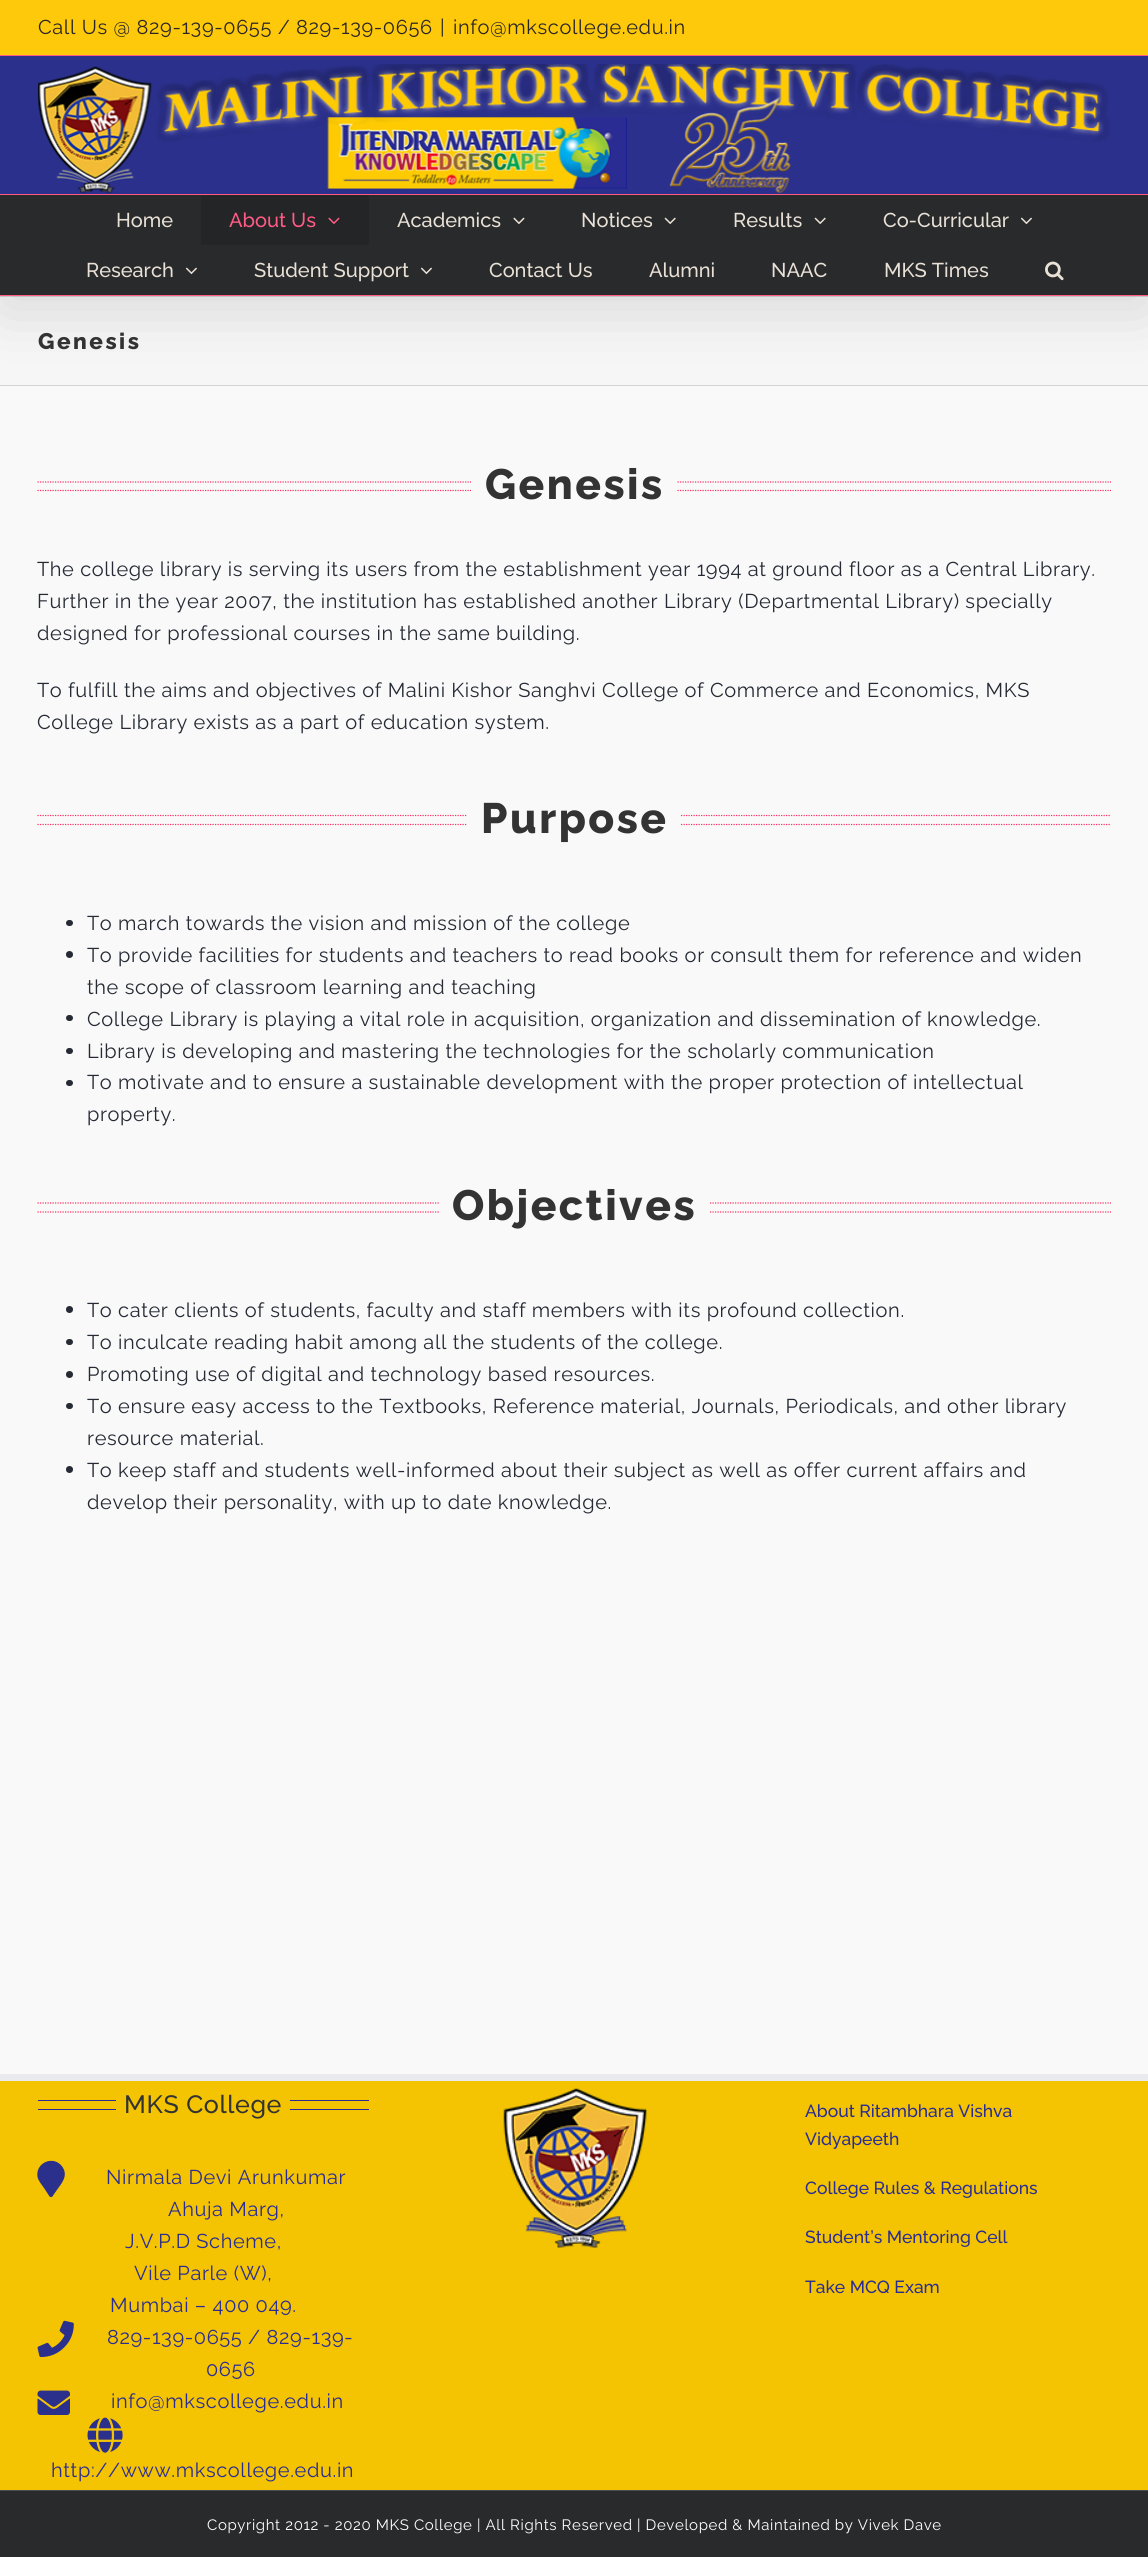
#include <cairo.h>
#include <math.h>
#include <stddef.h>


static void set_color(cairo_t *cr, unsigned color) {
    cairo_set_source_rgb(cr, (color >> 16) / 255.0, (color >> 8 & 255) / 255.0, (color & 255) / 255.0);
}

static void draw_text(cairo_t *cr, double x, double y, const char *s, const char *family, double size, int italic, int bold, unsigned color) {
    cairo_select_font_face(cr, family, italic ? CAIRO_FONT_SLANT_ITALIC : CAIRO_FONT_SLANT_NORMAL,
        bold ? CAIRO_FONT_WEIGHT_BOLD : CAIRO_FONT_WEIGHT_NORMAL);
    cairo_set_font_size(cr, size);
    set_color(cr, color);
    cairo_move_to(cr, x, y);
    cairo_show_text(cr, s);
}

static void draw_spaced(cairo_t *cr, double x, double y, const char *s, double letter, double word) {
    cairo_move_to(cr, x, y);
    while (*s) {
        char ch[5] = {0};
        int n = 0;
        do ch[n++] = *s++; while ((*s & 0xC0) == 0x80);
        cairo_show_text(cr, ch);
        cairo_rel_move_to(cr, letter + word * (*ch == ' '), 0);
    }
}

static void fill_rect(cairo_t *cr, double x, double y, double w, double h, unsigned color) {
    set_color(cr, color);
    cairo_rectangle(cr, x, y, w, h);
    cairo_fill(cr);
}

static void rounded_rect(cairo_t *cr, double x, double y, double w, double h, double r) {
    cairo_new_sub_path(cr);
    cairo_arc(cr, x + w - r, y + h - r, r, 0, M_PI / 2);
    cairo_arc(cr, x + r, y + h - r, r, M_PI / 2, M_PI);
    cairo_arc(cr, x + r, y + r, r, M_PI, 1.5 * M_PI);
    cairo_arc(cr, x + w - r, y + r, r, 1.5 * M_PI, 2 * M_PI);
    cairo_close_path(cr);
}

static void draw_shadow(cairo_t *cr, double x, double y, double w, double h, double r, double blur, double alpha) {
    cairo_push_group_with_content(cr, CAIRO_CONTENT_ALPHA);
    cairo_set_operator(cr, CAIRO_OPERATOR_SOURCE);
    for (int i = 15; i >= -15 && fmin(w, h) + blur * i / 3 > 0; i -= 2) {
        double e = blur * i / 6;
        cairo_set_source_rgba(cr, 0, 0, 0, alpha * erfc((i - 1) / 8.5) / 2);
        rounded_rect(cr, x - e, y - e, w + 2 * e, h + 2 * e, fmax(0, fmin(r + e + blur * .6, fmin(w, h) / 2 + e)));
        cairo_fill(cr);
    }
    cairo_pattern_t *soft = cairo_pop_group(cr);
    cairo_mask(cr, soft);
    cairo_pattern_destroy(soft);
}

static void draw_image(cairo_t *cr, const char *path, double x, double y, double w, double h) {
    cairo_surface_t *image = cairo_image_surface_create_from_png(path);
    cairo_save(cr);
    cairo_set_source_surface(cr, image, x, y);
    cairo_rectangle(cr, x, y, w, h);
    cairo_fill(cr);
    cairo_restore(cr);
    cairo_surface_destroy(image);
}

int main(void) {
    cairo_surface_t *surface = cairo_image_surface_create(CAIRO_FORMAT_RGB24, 1148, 2557);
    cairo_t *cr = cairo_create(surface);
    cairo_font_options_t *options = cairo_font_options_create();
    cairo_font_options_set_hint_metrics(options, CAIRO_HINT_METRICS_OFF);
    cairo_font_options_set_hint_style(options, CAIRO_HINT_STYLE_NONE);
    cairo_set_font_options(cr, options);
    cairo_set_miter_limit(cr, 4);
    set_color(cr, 0xF6F6F6);
    cairo_paint(cr);
    fill_rect(cr, 0, 296, 1148, 1, 0xD2D3D4);
    fill_rect(cr, 0, 385, 1148, 1, 0xD2D3D4);
    fill_rect(cr, 0, 386, 1148, 1688, 0xF9F9F9);
    set_color(cr, 0x000000);
    draw_shadow(cr, 3, 15, 1143, 291, 0, 31, 0.14);
    fill_rect(cr, 0, 0, 1148, 55, 0xFEC90A);
    fill_rect(cr, 0, 55, 1148, 1, 0xFF5B85);
    cairo_select_font_face(cr, "Raleway", CAIRO_FONT_SLANT_NORMAL, CAIRO_FONT_WEIGHT_NORMAL);
    cairo_set_font_size(cr, 20);
    set_color(cr, 0x2A2527);
    draw_spaced(cr, 38, 34, "Call Us @ 829-139-0655 / 829-139-0656", 0.62, 0);
    draw_spaced(cr, 440, 34, "|", 0.62, 0);
    draw_spaced(cr, 453, 34, "info@mkscollege.edu.in", 0.62, 0);
    fill_rect(cr, 0, 56, 1148, 138, 0x2B308C);
    fill_rect(cr, 0, 194, 1148, 1, 0xFF5B85);
    draw_image(cr, "assets/img1.png", 38, 64, 1072, 129);
    fill_rect(cr, 0, 195, 1148, 100, 0x282A2B);
    fill_rect(cr, 0, 295, 1148, 1, 0xFF5B85);
    draw_text(cr, 116, 227, "Home", "Raleway Medium", 20, 0, 0, 0xE9E0D6);
    fill_rect(cr, 201, 195, 168, 50, 0x232526);
    draw_text(cr, 229, 227, "About Us", "Raleway Medium", 20, 0, 0, 0xFF5B85);
    draw_image(cr, "assets/img2.png", 328, 217, 12, 8);
    draw_text(cr, 397, 227, "Academics", "Raleway Medium", 20, 0, 0, 0xE9E0D6);
    draw_image(cr, "assets/img3.png", 513, 217, 12, 8);
    draw_text(cr, 581, 227, "Notices", "Raleway Medium", 20, 0, 0, 0xE9E0D6);
    draw_image(cr, "assets/img4.png", 664, 217, 12, 8);
    draw_text(cr, 733, 227, "Results", "Raleway Medium", 20, 0, 0, 0xE9E0D6);
    draw_image(cr, "assets/img4.png", 814, 217, 12, 8);
    draw_text(cr, 883, 227, "Co-Curricular", "Raleway Medium", 20, 0, 0, 0xE9E0D6);
    draw_image(cr, "assets/img5.png", 1020, 217, 12, 8);
    draw_text(cr, 86, 277, "Research", "Raleway Medium", 20, 0, 0, 0xE9E0D6);
    draw_image(cr, "assets/img5.png", 185, 267, 12, 8);
    draw_text(cr, 254, 277, "Student Support", "Raleway Medium", 20, 0, 0, 0xE9E0D6);
    draw_image(cr, "assets/img5.png", 420, 267, 12, 8);
    draw_text(cr, 489, 277, "Contact Us", "Raleway Medium", 20, 0, 0, 0xE9E0D6);
    draw_text(cr, 649, 277, "Alumni", "Raleway Medium", 20, 0, 0, 0xE9E0D6);
    draw_text(cr, 771, 277, "NAAC", "Raleway Medium", 20, 0, 0, 0xE9E0D6);
    draw_text(cr, 884, 277, "MKS Times", "Raleway Medium", 20, 0, 0, 0xE9E0D6);
    draw_image(cr, "assets/img6.png", 1045, 261, 19, 20);
    cairo_select_font_face(cr, "Raleway ExtraBold", CAIRO_FONT_SLANT_NORMAL, CAIRO_FONT_WEIGHT_NORMAL);
    cairo_set_font_size(cr, 22.5);
    set_color(cr, 0x333333);
    draw_spaced(cr, 38, 349, "Genesis", 2.5, 0);
    cairo_new_path(cr);
    cairo_move_to(cr, 37.5, 482);
    cairo_line_to(cr, 471, 482);
    set_color(cr, 0xFF2E63);
    cairo_set_line_width(cr, 1.2);
    cairo_set_dash(cr, (double[]){1.25, 1.25}, 2, 0);
    cairo_stroke(cr);
    cairo_new_path(cr);
    cairo_move_to(cr, 37.5, 490.5);
    cairo_line_to(cr, 471, 490.5);
    cairo_stroke(cr);
    cairo_set_font_size(cr, 42.5);
    set_color(cr, 0x333333);
    draw_spaced(cr, 485, 499, "Genesis", 2.5, 0);
    cairo_new_path(cr);
    cairo_move_to(cr, 677.5, 482);
    cairo_line_to(cr, 1111, 482);
    set_color(cr, 0xFF2E63);
    cairo_stroke(cr);
    cairo_new_path(cr);
    cairo_move_to(cr, 677.5, 490.5);
    cairo_line_to(cr, 1111, 490.5);
    cairo_stroke(cr);
    cairo_select_font_face(cr, "Raleway", CAIRO_FONT_SLANT_NORMAL, CAIRO_FONT_WEIGHT_NORMAL);
    cairo_set_font_size(cr, 20);
    set_color(cr, 0x252A34);
    draw_spaced(cr, 37, 576, "The college library is serving its users from the establishment year 1994 at ground floor as a Central Library.", 0.62, 0);
    draw_spaced(cr, 37, 608, "Further in the year 2007, the institution has established another Library (Departmental Library) specially", 0.62, 0);
    draw_spaced(cr, 37, 640, "designed for professional courses in the same building.", 0.62, 0);
    draw_spaced(cr, 37, 697, "To fulfill the aims and objectives of Malini Kishor Sanghvi College of Commerce and Economics, MKS", 0.62, 0);
    draw_spaced(cr, 37, 729, "College Library exists as a part of education system.", 0.62, 0);
    cairo_new_path(cr);
    cairo_move_to(cr, 37.5, 815.5);
    cairo_line_to(cr, 467.5, 815.5);
    set_color(cr, 0xFF2E63);
    cairo_stroke(cr);
    cairo_new_path(cr);
    cairo_move_to(cr, 37.5, 824.5);
    cairo_line_to(cr, 467.5, 824.5);
    cairo_stroke(cr);
    cairo_select_font_face(cr, "Raleway ExtraBold", CAIRO_FONT_SLANT_NORMAL, CAIRO_FONT_WEIGHT_NORMAL);
    cairo_set_font_size(cr, 42.5);
    set_color(cr, 0x333333);
    draw_spaced(cr, 481, 833, "Purpose", 2.5, 0);
    cairo_new_path(cr);
    cairo_move_to(cr, 681, 815.5);
    cairo_line_to(cr, 1111, 815.5);
    set_color(cr, 0xFF2E63);
    cairo_stroke(cr);
    cairo_new_path(cr);
    cairo_move_to(cr, 681, 824.5);
    cairo_line_to(cr, 1111, 824.5);
    cairo_stroke(cr);
    set_color(cr, 0x252A34);
    rounded_rect(cr, 66, 920, 7, 6, 3);
    cairo_fill(cr);
    cairo_select_font_face(cr, "Raleway", CAIRO_FONT_SLANT_NORMAL, CAIRO_FONT_WEIGHT_NORMAL);
    cairo_set_font_size(cr, 20);
    draw_spaced(cr, 87, 930, "To march towards the vision and mission of the college", 0.62, 0);
    cairo_new_path(cr);
    cairo_arc(cr, 69.5, 954.5, 3.5, 0, 2 * M_PI);
    cairo_fill(cr);
    draw_spaced(cr, 87, 962, "To provide facilities for students and teachers to read books or consult them for reference and widen", 0.62, 0);
    draw_spaced(cr, 87, 994, "the scope of classroom learning and teaching", 0.62, 0);
    rounded_rect(cr, 66, 1015, 7, 6, 3);
    cairo_fill(cr);
    draw_spaced(cr, 87, 1026, "College Library is playing a vital role in acquisition, organization and dissemination of knowledge.", 0.62, 0);
    rounded_rect(cr, 66, 1048, 7, 6, 3);
    cairo_fill(cr);
    draw_spaced(cr, 87, 1058, "Library is developing and mastering the technologies for the scholarly communication", 0.62, 0);
    rounded_rect(cr, 66, 1080, 7, 6, 3);
    cairo_fill(cr);
    draw_spaced(cr, 87, 1089, "To motivate and to ensure a sustainable development with the proper protection of intellectual", 0.62, 0);
    draw_spaced(cr, 87, 1121, "property.", 0.62, 0);
    cairo_new_path(cr);
    cairo_move_to(cr, 37.5, 1203);
    cairo_line_to(cr, 439, 1203);
    set_color(cr, 0xFF2E63);
    cairo_stroke(cr);
    cairo_new_path(cr);
    cairo_move_to(cr, 37.5, 1212);
    cairo_line_to(cr, 439, 1212);
    cairo_stroke(cr);
    cairo_select_font_face(cr, "Raleway ExtraBold", CAIRO_FONT_SLANT_NORMAL, CAIRO_FONT_WEIGHT_NORMAL);
    cairo_set_font_size(cr, 42.5);
    set_color(cr, 0x333333);
    draw_spaced(cr, 452, 1220, "Objectives", 2.5, 0);
    cairo_new_path(cr);
    cairo_move_to(cr, 710, 1203);
    cairo_line_to(cr, 1111, 1203);
    set_color(cr, 0xFF2E63);
    cairo_stroke(cr);
    cairo_new_path(cr);
    cairo_move_to(cr, 710, 1212);
    cairo_line_to(cr, 1111, 1212);
    cairo_stroke(cr);
    set_color(cr, 0x252A34);
    cairo_arc(cr, 69.5, 1309.5, 3.5, 0, 2 * M_PI);
    cairo_fill(cr);
    cairo_select_font_face(cr, "Raleway", CAIRO_FONT_SLANT_NORMAL, CAIRO_FONT_WEIGHT_NORMAL);
    cairo_set_font_size(cr, 20);
    draw_spaced(cr, 87, 1317, "To cater clients of students, faculty and staff members with its profound collection.", 0.62, 0);
    rounded_rect(cr, 66, 1339, 7, 6, 3);
    cairo_fill(cr);
    draw_spaced(cr, 87, 1349, "To inculcate reading habit among all the students of the college.", 0.62, 0);
    cairo_new_path(cr);
    cairo_arc(cr, 69.5, 1374.5, 3.5, 0, 2 * M_PI);
    cairo_fill(cr);
    draw_spaced(cr, 87, 1381, "Promoting use of digital and technology based resources.", 0.62, 0);
    rounded_rect(cr, 66, 1403, 7, 6, 3);
    cairo_fill(cr);
    draw_spaced(cr, 87, 1413, "To ensure easy access to the Textbooks, Reference material, Journals, Periodicals, and other library", 0.62, 0);
    draw_spaced(cr, 87, 1445, "resource material.", 0.62, 0);
    cairo_new_path(cr);
    cairo_arc(cr, 69.5, 1469.5, 3.5, 0, 2 * M_PI);
    cairo_fill(cr);
    draw_spaced(cr, 87, 1477, "To keep staff and students well-informed about their subject as well as offer current affairs and", 0.62, 0);
    draw_spaced(cr, 87, 1509, "develop their personality, with up to date knowledge.", 0.62, 0);
    fill_rect(cr, 0, 2081, 1148, 409, 0xF4C402);
    fill_rect(cr, 0, 2074, 1148, 7, 0xE9EAEE);
    fill_rect(cr, 38, 2100, 78, 1, 0x2A2C93);
    fill_rect(cr, 38, 2109, 78, 1, 0x2A2C93);
    cairo_select_font_face(cr, "Raleway Medium", CAIRO_FONT_SLANT_NORMAL, CAIRO_FONT_WEIGHT_NORMAL);
    cairo_set_font_size(cr, 25);
    set_color(cr, 0x333333);
    draw_spaced(cr, 124, 2113, "MKS College", 0.62, 0);
    fill_rect(cr, 290, 2100, 79, 1, 0x2A2C93);
    fill_rect(cr, 290, 2109, 79, 1, 0x2A2C93);
    set_color(cr, 0x2B308C);
    cairo_new_path(cr);
    cairo_move_to(cr, 49.5, 2196.5);
    cairo_line_to(cr, 44, 2188);
    cairo_curve_to(cr, 41.5, 2184.5, 38.5, 2181, 37.5, 2177);
    cairo_curve_to(cr, 35, 2162.5, 54, 2154.5, 62.5, 2167);
    cairo_curve_to(cr, 68.5, 2176, 61.5, 2183.5, 56.5, 2190.5);
    cairo_line_to(cr, 52, 2197);
    cairo_curve_to(cr, 51, 2197, 50, 2197, 49.5, 2196.5);
    cairo_close_path(cr);
    cairo_fill(cr);
    cairo_select_font_face(cr, "Raleway", CAIRO_FONT_SLANT_NORMAL, CAIRO_FONT_WEIGHT_NORMAL);
    cairo_set_font_size(cr, 20);
    set_color(cr, 0x2A2C93);
    draw_spaced(cr, 106, 2184, "Nirmala Devi Arunkumar", 0.62, 0);
    draw_spaced(cr, 168, 2216, "Ahuja Marg,", 0.62, 0);
    draw_spaced(cr, 125, 2248, "J.V.P.D Scheme,", 0.62, 0);
    draw_spaced(cr, 134, 2280, "Vile Parle (W),", 0.62, 0);
    draw_spaced(cr, 110, 2312, "Mumbai – 400 049.", 0.62, 0);
    draw_image(cr, "assets/img7.png", 37, 2320, 37, 37);
    draw_spaced(cr, 107, 2344, "829-139-0655 / 829-139-", 0.62, 0);
    draw_spaced(cr, 206, 2376, "0656", 0.62, 0);
    draw_image(cr, "assets/img8.png", 37, 2390, 33, 25);
    draw_spaced(cr, 111, 2408, "info@mkscollege.edu.in", 0.62, 0);
    draw_image(cr, "assets/img9.png", 87, 2417, 36, 36);
    draw_spaced(cr, 51, 2477, "http://www.mkscollege.edu.in", 0.62, 0);
    draw_image(cr, "assets/img10.png", 503, 2088, 144, 160);
    draw_text(cr, 805, 2117, "About Ritambhara Vishva", "Raleway Medium", 17.5, 0, 0, 0x2A2C93);
    draw_text(cr, 805, 2145, "Vidyapeeth", "Raleway Medium", 17.5, 0, 0, 0x2A2C93);
    draw_text(cr, 805, 2194, "College Rules & Regulations", "Raleway Medium", 17.5, 0, 0, 0x2A2C93);
    draw_text(cr, 805, 2243, "Student’s Mentoring Cell", "Raleway Medium", 17.5, 0, 0, 0x2A2C93);
    draw_text(cr, 805, 2293, "Take MCQ Exam", "Raleway Medium", 17.5, 0, 0, 0x2A2C93);
    fill_rect(cr, 0, 2491, 1148, 66, 0x282A2B);
    fill_rect(cr, 0, 2490, 1148, 1, 0x4B4C4D);
    cairo_select_font_face(cr, "Raleway", CAIRO_FONT_SLANT_NORMAL, CAIRO_FONT_WEIGHT_NORMAL);
    cairo_set_font_size(cr, 15);
    set_color(cr, 0xFFFFFF);
    draw_spaced(cr, 207, 2530, "Copyright 2012 - 2020 MKS College | All Rights Reserved | Developed & Maintained by Vivek Dave", 0.62, 0);
    cairo_surface_write_to_png(surface, "output.png");
    cairo_font_options_destroy(options);
    cairo_destroy(cr);
    cairo_surface_destroy(surface);
    return 0;
}
